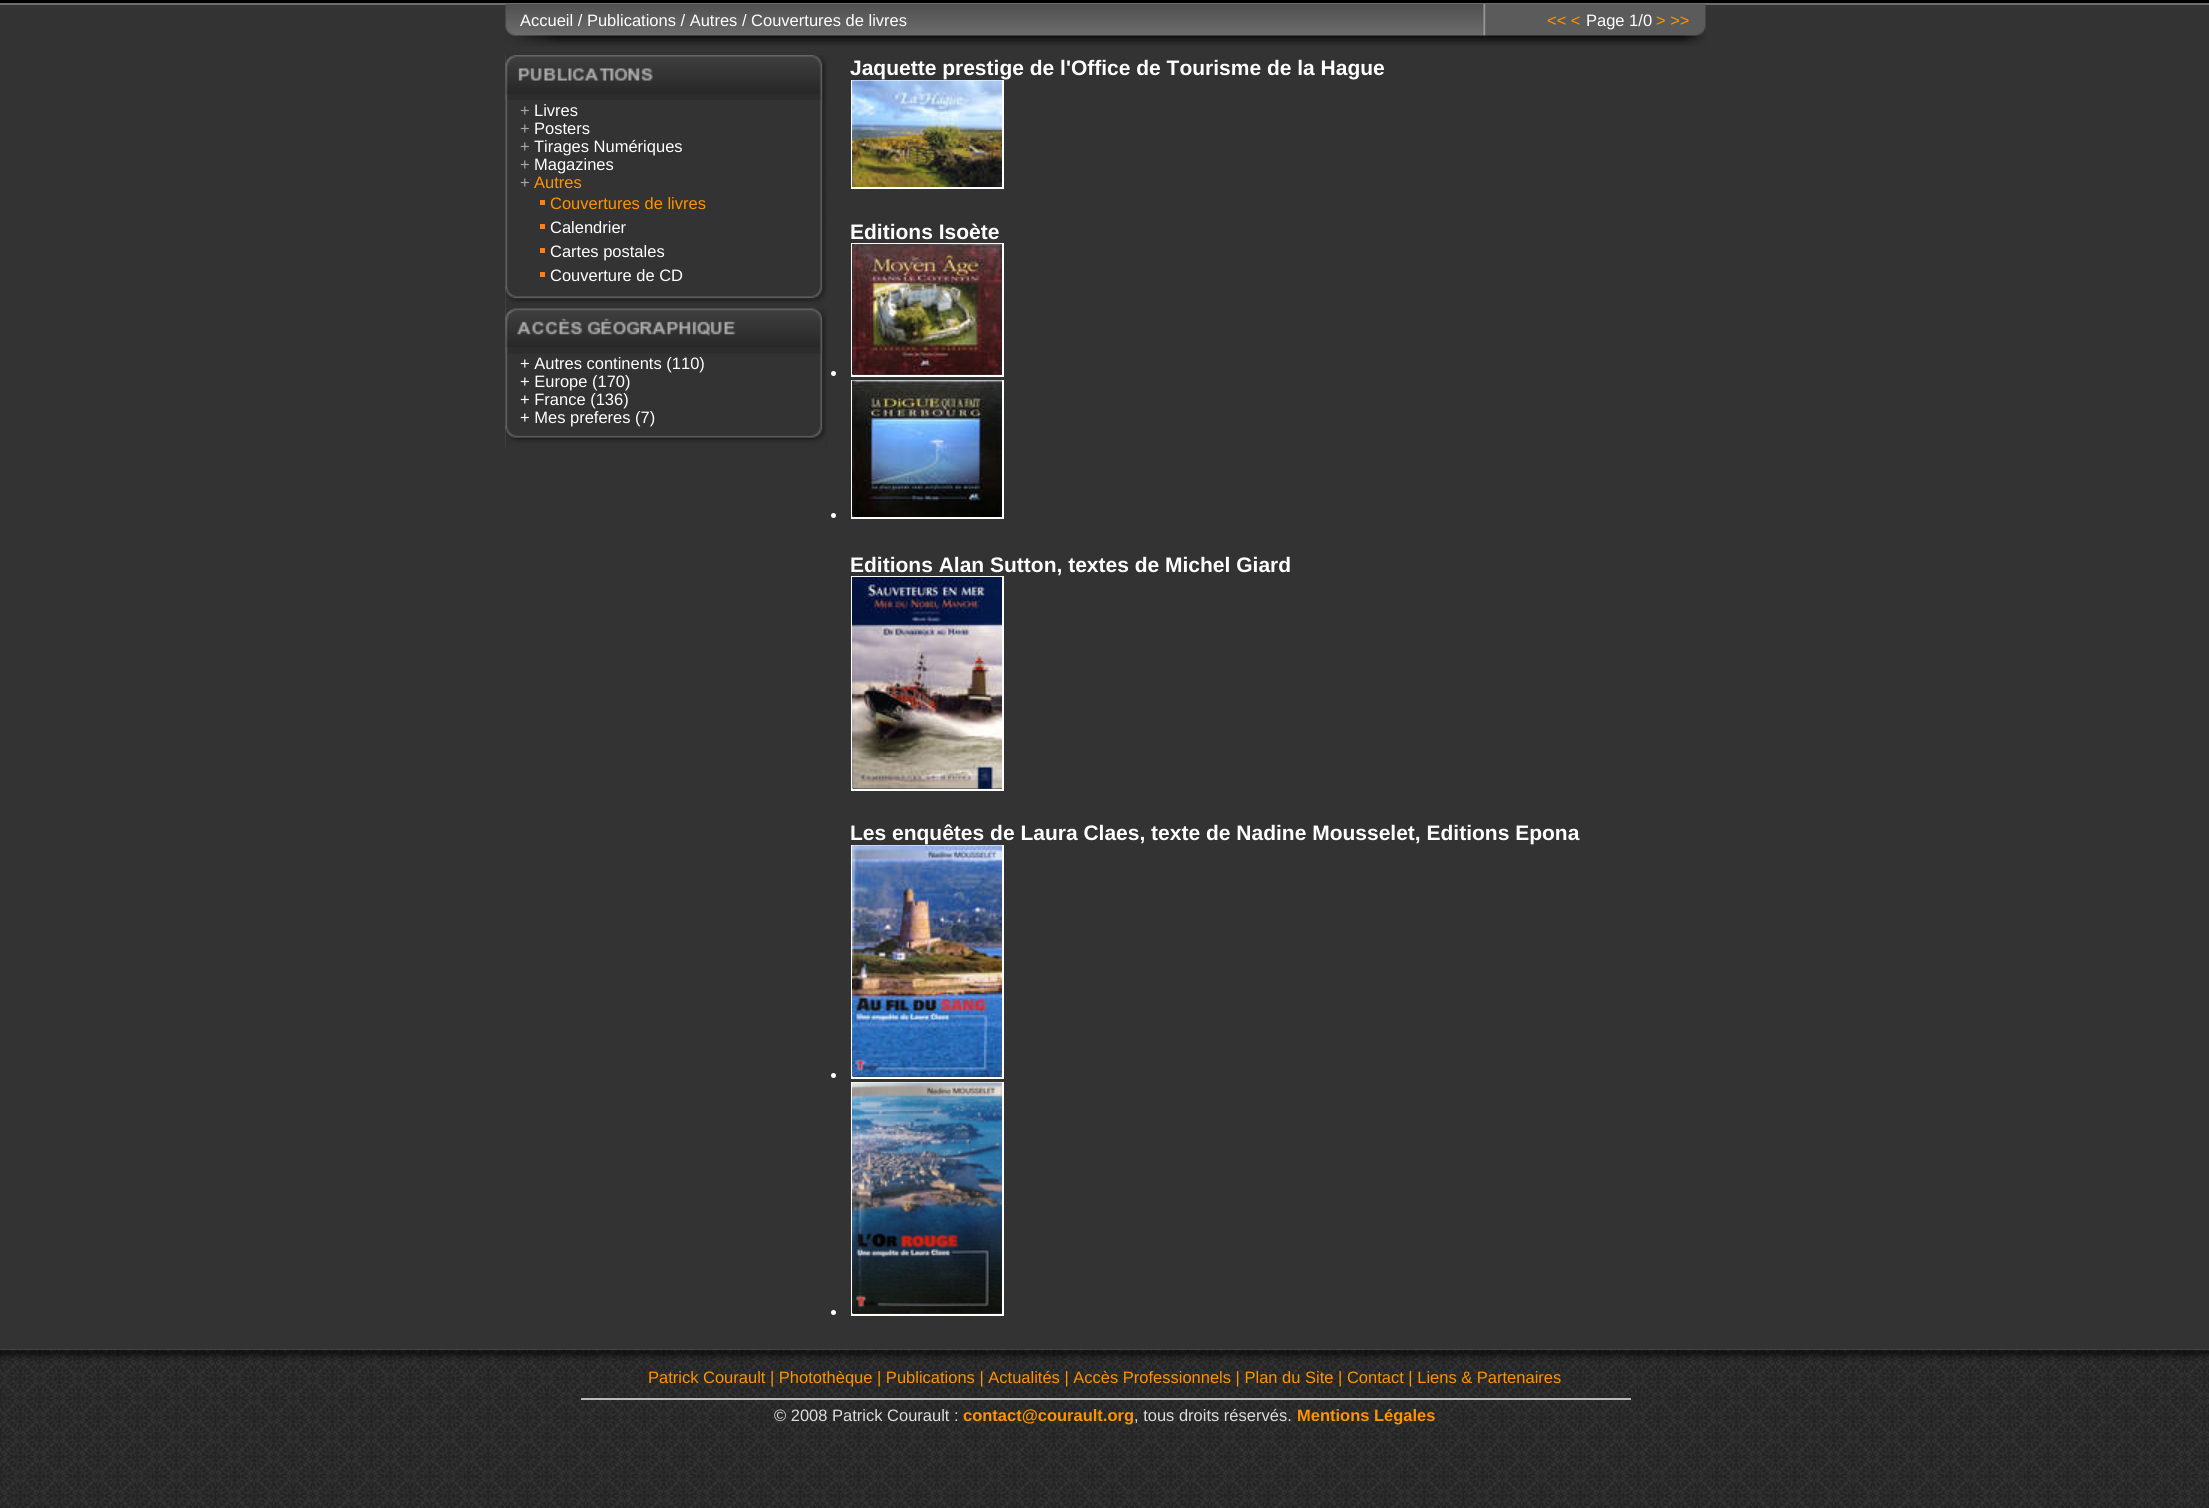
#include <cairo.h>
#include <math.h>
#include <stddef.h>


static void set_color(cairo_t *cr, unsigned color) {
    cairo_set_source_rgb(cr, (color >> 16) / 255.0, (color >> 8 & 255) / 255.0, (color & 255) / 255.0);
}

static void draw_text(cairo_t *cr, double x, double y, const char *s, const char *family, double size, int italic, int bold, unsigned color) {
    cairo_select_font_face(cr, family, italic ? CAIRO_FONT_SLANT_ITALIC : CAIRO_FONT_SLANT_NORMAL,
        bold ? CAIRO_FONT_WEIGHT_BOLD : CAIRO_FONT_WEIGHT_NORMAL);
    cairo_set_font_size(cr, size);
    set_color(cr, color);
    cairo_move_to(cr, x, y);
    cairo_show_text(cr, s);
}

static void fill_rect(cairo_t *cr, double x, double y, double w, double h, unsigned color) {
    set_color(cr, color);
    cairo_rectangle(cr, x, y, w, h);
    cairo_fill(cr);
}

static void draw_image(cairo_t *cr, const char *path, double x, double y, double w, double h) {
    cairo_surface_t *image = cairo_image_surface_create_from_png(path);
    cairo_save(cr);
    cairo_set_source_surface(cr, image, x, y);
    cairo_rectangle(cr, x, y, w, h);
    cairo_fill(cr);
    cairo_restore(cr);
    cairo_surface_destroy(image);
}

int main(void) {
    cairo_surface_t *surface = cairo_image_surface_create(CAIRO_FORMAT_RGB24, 2209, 1508);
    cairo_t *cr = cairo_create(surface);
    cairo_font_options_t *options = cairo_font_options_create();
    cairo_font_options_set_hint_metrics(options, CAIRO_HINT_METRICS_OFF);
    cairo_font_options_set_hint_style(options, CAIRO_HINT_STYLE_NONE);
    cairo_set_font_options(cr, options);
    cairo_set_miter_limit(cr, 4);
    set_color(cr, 0x000000);
    cairo_paint(cr);
    fill_rect(cr, 0, 3, 2209, 2, 0x6E6E6E);
    fill_rect(cr, 0, 5, 2209, 1344, 0x333333);
    fill_rect(cr, 0, 1349, 2209, 1, 0x6E6E6E);
    draw_image(cr, "assets/img1.png", 505, 4, 1201, 42);
    draw_text(cr, 520, 26, "Accueil / Publications / Autres / Couvertures de livres", "Liberation Sans", 16.5, 0, 0, 0xFFFFFF);
    draw_text(cr, 1547, 26, "<< <", "Liberation Sans", 16.5, 0, 0, 0xFF9300);
    draw_text(cr, 1586, 26, "Page 1/0", "Liberation Sans", 16.5, 0, 0, 0xFFFFFF);
    draw_text(cr, 1656, 26, "> >>", "Liberation Sans", 16.5, 0, 0, 0xFF9300);
    draw_image(cr, "assets/img2.png", 505, 55, 322, 393);
    draw_image(cr, "assets/img3.png", 505, 55, 321, 45);
    draw_text(cr, 520, 116, "+", "Liberation Sans", 16.5, 0, 0, 0xA7A7A7);
    draw_text(cr, 534, 116, "Livres", "Liberation Sans", 16.5, 0, 0, 0xFFFFFF);
    draw_text(cr, 520, 134, "+", "Liberation Sans", 16.5, 0, 0, 0xA7A7A7);
    draw_text(cr, 534, 134, "Posters", "Liberation Sans", 16.5, 0, 0, 0xFFFFFF);
    draw_text(cr, 520, 152, "+", "Liberation Sans", 16.5, 0, 0, 0xA7A7A7);
    draw_text(cr, 534, 152, "Tirages Numériques", "Liberation Sans", 16.5, 0, 0, 0xFFFFFF);
    draw_text(cr, 520, 170, "+", "Liberation Sans", 16.5, 0, 0, 0xA7A7A7);
    draw_text(cr, 534, 170, "Magazines", "Liberation Sans", 16.5, 0, 0, 0xFFFFFF);
    draw_text(cr, 520, 188, "+", "Liberation Sans", 16.5, 0, 0, 0xA7A7A7);
    draw_text(cr, 534, 188, "Autres", "Liberation Sans", 16.5, 0, 0, 0xFF9300);
    fill_rect(cr, 540, 200, 5, 5, 0xFF8018);
    draw_text(cr, 550, 209, "Couvertures de livres", "Liberation Sans", 16.5, 0, 0, 0xFF9300);
    fill_rect(cr, 540, 224, 5, 5, 0xFF8018);
    draw_text(cr, 550, 233, "Calendrier", "Liberation Sans", 16.5, 0, 0, 0xFFFFFF);
    fill_rect(cr, 540, 248, 5, 5, 0xFF8018);
    draw_text(cr, 550, 257, "Cartes postales", "Liberation Sans", 16.5, 0, 0, 0xFFFFFF);
    fill_rect(cr, 540, 272, 5, 5, 0xFF8018);
    draw_text(cr, 550, 281, "Couverture de CD", "Liberation Sans", 16.5, 0, 0, 0xFFFFFF);
    draw_image(cr, "assets/img4.png", 505, 286, 322, 23);
    draw_image(cr, "assets/img5.png", 505, 308, 321, 46);
    draw_text(cr, 520, 369, "+ Autres continents (110)", "Liberation Sans", 16.5, 0, 0, 0xFFFFFF);
    draw_text(cr, 520, 387, "+ Europe (170)", "Liberation Sans", 16.5, 0, 0, 0xFFFFFF);
    draw_text(cr, 520, 405, "+ France (136)", "Liberation Sans", 16.5, 0, 0, 0xFFFFFF);
    draw_image(cr, "assets/img6.png", 505, 425, 321, 23);
    draw_text(cr, 520, 423, "+ Mes preferes (7)", "Liberation Sans", 16.5, 0, 0, 0xFFFFFF);
    draw_text(cr, 850, 75, "Jaquette prestige de l'Office de Tourisme de la Hague", "Liberation Sans", 21, 0, 1, 0xFFFFFF);
    cairo_rectangle(cr, 852, 81, 151, 107);
    cairo_stroke(cr);
    draw_image(cr, "assets/img7.png", 852, 80, 150, 107);
    draw_text(cr, 850, 239, "Editions Isoète", "Liberation Sans", 21, 0, 1, 0xFFFFFF);
    cairo_rectangle(cr, 852, 244, 151, 132);
    cairo_stroke(cr);
    cairo_arc(cr, 833.5, 373.5, 2.5, 0, 2 * M_PI);
    cairo_fill(cr);
    draw_image(cr, "assets/img8.png", 852, 244, 150, 131);
    cairo_rectangle(cr, 852, 381, 151, 137);
    cairo_stroke(cr);
    cairo_arc(cr, 833.5, 515.5, 2.5, 0, 2 * M_PI);
    cairo_fill(cr);
    draw_image(cr, "assets/img9.png", 852, 380, 150, 137);
    draw_text(cr, 850, 572, "Editions Alan Sutton, textes de Michel Giard", "Liberation Sans", 21, 0, 1, 0xFFFFFF);
    cairo_rectangle(cr, 852, 577, 151, 213);
    cairo_stroke(cr);
    draw_image(cr, "assets/img10.png", 852, 577, 150, 212);
    draw_text(cr, 850, 840, "Les enquêtes de Laura Claes, texte de Nadine Mousselet, Editions Epona", "Liberation Sans", 21, 0, 1, 0xFFFFFF);
    cairo_rectangle(cr, 852, 846, 151, 232);
    cairo_stroke(cr);
    cairo_arc(cr, 833.5, 1075.5, 2.5, 0, 2 * M_PI);
    cairo_fill(cr);
    draw_image(cr, "assets/img11.png", 852, 845, 150, 232);
    cairo_rectangle(cr, 852, 1083, 151, 232);
    cairo_stroke(cr);
    cairo_arc(cr, 833.5, 1312.5, 2.5, 0, 2 * M_PI);
    cairo_fill(cr);
    draw_image(cr, "assets/img12.png", 852, 1082, 150, 232);
    draw_image(cr, "assets/img13.png", 0, 1349, 2209, 159);
    draw_text(cr, 648, 1383, "Patrick Courault | Photothèque | Publications | Actualités | Accès Professionnels | Plan du Site | Contact | Liens & Partenaires", "Liberation Sans", 16.5, 0, 0, 0xFF9300);
    fill_rect(cr, 581, 1398, 1050, 2, 0xBBBBBB);
    draw_text(cr, 774, 1421, "© 2008 Patrick Courault :", "Liberation Sans", 16.5, 0, 0, 0xDDDDDD);
    draw_text(cr, 963, 1421, "contact@courault.org", "Liberation Sans", 16.5, 0, 1, 0xFF9300);
    draw_text(cr, 1134, 1421, ", tous droits réservés.", "Liberation Sans", 16.5, 0, 0, 0xDDDDDD);
    draw_text(cr, 1297, 1421, "Mentions Légales", "Liberation Sans", 16.5, 0, 1, 0xFF9300);
    cairo_surface_write_to_png(surface, "output.png");
    cairo_font_options_destroy(options);
    cairo_destroy(cr);
    cairo_surface_destroy(surface);
    return 0;
}
